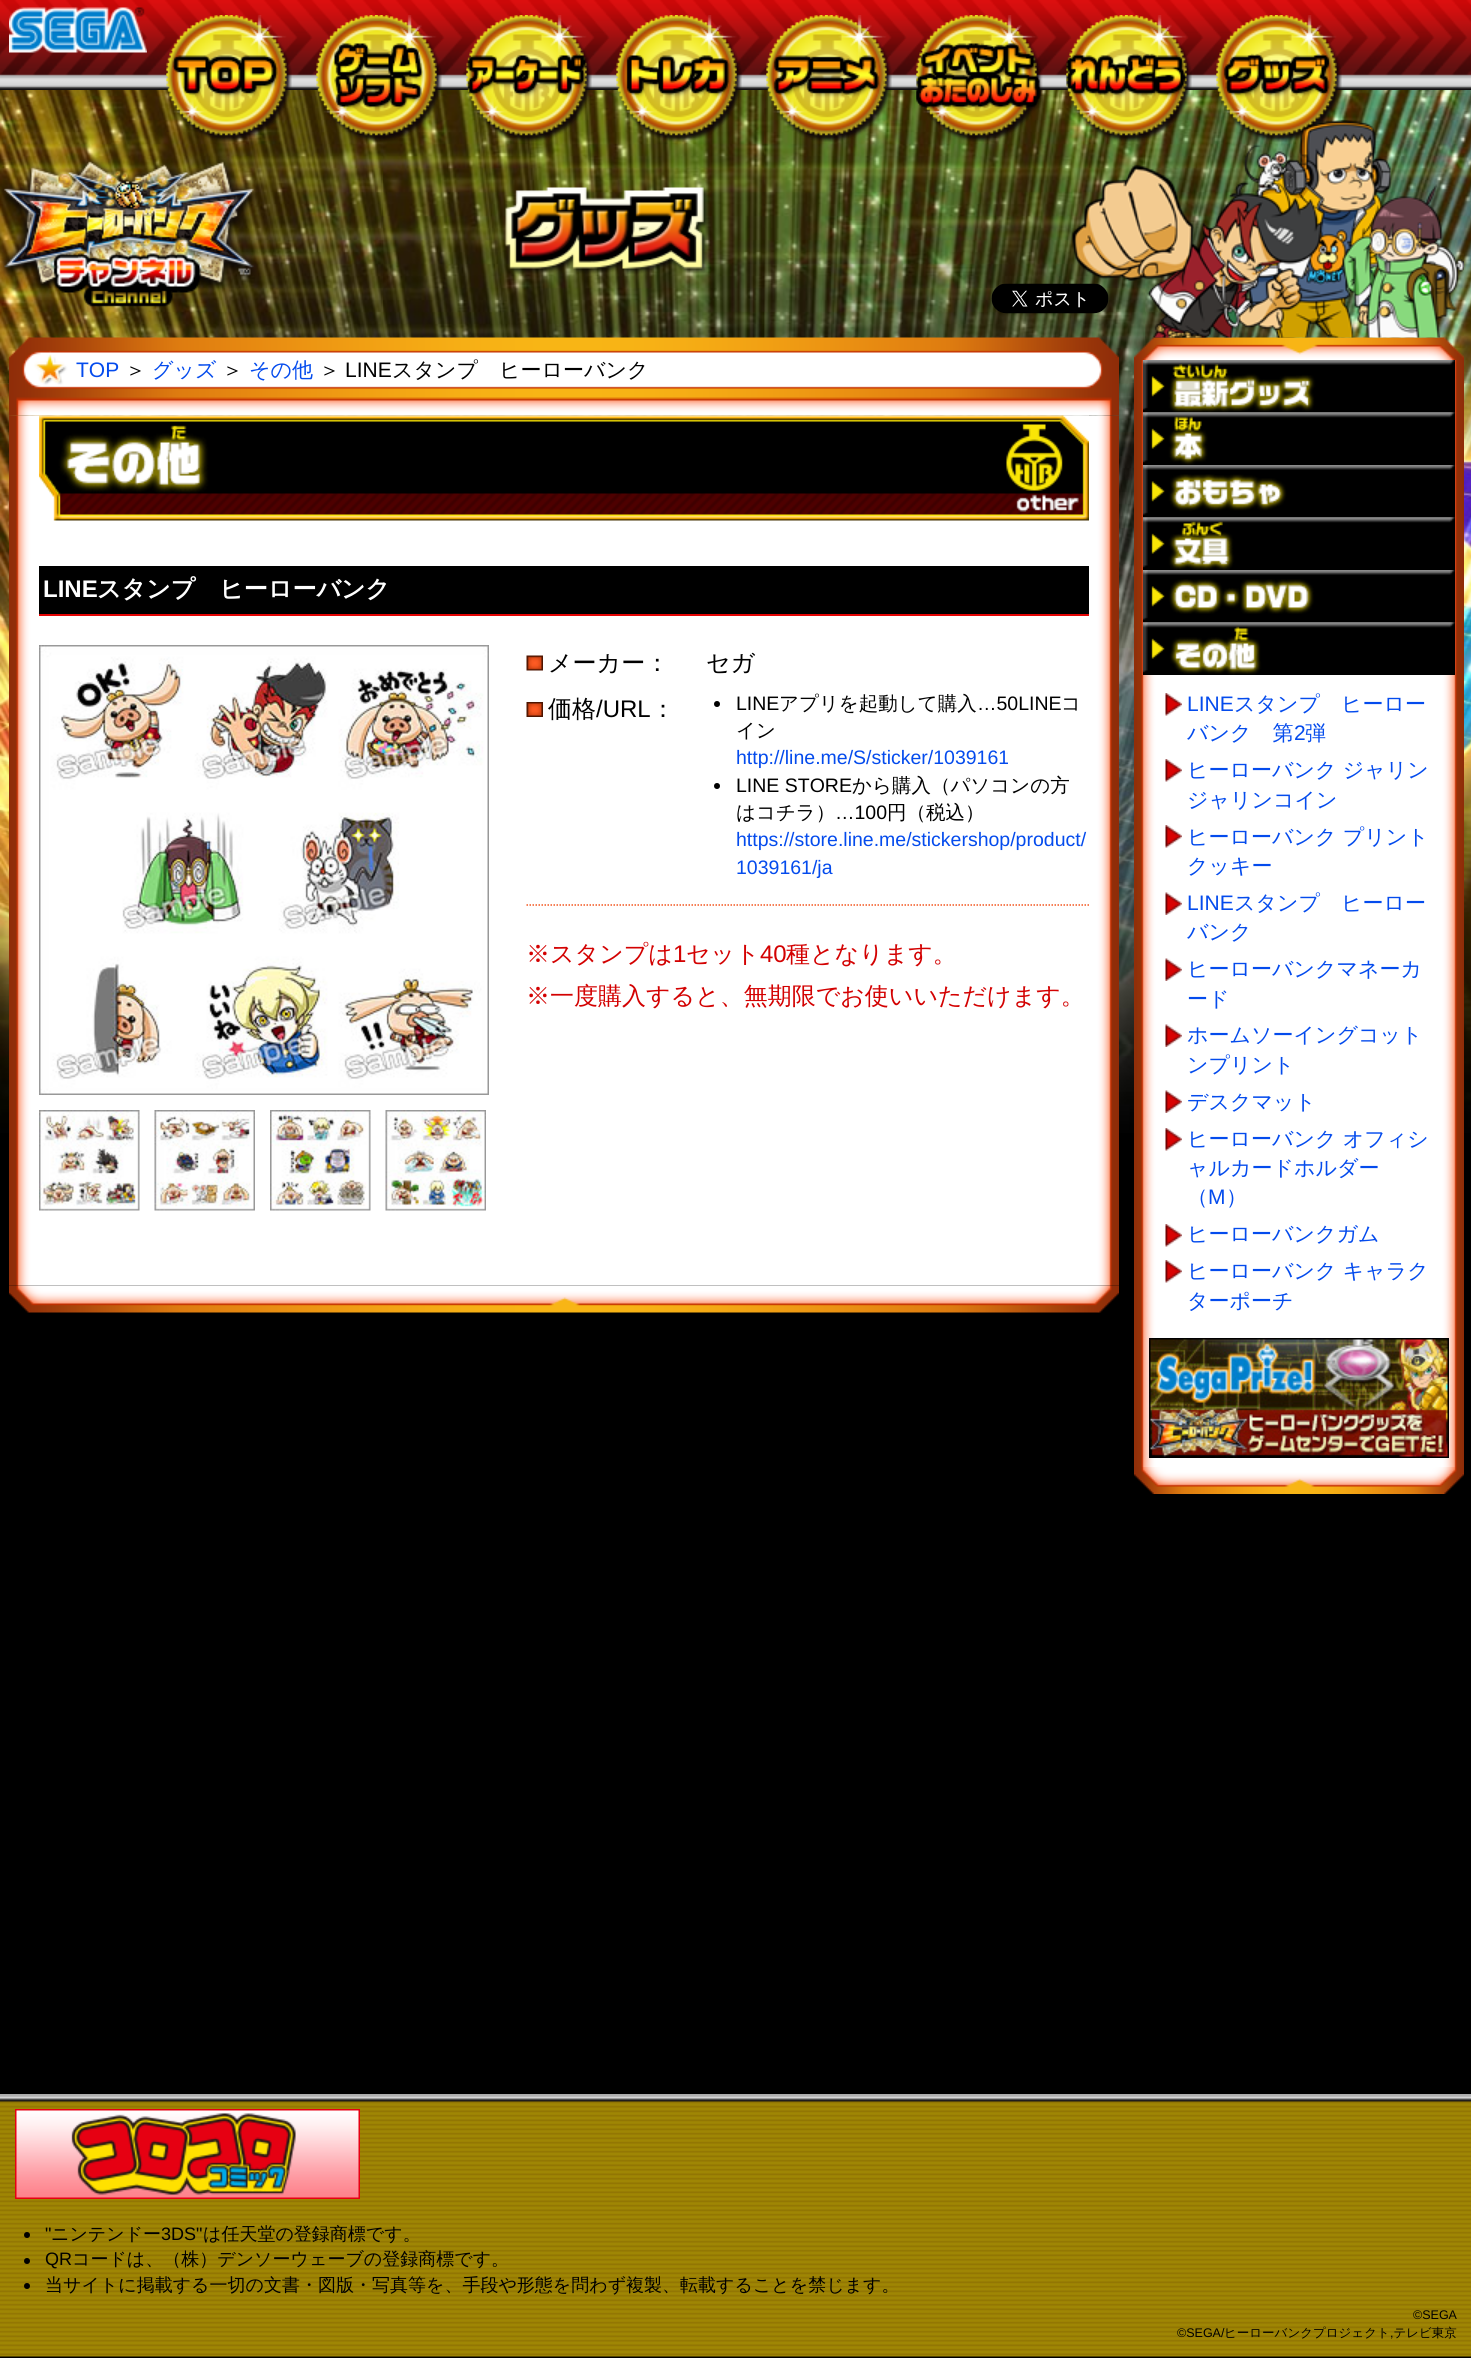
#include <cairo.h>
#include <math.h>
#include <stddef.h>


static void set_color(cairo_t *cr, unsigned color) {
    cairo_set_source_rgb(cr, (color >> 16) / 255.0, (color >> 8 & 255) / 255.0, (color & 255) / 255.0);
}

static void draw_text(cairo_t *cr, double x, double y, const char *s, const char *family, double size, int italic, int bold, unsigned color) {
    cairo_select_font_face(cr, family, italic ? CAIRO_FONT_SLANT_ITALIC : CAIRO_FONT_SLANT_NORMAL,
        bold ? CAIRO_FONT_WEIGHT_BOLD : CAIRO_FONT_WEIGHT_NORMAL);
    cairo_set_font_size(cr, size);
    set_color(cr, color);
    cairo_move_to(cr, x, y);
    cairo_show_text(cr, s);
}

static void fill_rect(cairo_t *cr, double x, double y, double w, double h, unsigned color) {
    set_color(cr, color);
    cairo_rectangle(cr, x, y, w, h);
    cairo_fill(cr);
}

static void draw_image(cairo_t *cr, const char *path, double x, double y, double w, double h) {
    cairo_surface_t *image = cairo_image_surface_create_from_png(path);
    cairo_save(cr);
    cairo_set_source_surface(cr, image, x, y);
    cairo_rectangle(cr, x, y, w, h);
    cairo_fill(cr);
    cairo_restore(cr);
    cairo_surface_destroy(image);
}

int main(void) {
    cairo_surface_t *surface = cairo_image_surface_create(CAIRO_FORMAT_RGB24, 1471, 2358);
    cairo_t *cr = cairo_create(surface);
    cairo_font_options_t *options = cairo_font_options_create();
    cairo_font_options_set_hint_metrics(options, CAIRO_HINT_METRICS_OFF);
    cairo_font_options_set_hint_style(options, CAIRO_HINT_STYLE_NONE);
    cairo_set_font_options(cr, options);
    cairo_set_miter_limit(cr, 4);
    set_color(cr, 0x000000);
    cairo_paint(cr);
    draw_image(cr, "assets/img1.png", 0, 90, 1471, 1043);
    draw_image(cr, "assets/img2.png", 0, 0, 1471, 90);
    draw_image(cr, "assets/img3.png", 9, 7, 138, 46);
    draw_image(cr, "assets/img4.png", 166, 15, 126, 127);
    draw_image(cr, "assets/img5.png", 166, 15, 126, 127);
    draw_image(cr, "assets/img6.png", 316, 15, 126, 127);
    draw_image(cr, "assets/img7.png", 316, 15, 126, 127);
    draw_image(cr, "assets/img8.png", 466, 15, 126, 127);
    draw_image(cr, "assets/img9.png", 466, 15, 126, 127);
    draw_image(cr, "assets/img10.png", 616, 15, 126, 127);
    draw_image(cr, "assets/img11.png", 616, 15, 126, 127);
    draw_image(cr, "assets/img12.png", 766, 15, 126, 127);
    draw_image(cr, "assets/img13.png", 766, 15, 126, 127);
    draw_image(cr, "assets/img14.png", 916, 15, 127, 127);
    draw_image(cr, "assets/img15.png", 916, 15, 127, 127);
    draw_image(cr, "assets/img16.png", 1066, 15, 126, 127);
    draw_image(cr, "assets/img17.png", 1066, 15, 126, 127);
    draw_image(cr, "assets/img18.png", 1216, 15, 126, 127);
    draw_image(cr, "assets/img19.png", 1216, 15, 126, 127);
    draw_image(cr, "assets/img20.png", 0, 155, 257, 152);
    draw_image(cr, "assets/img21.png", 505, 187, 204, 87);
    draw_image(cr, "assets/img35.png", 1134, 337, 330, 23);
    draw_image(cr, "assets/img22.png", 1072, 119, 392, 219);
    draw_image(cr, "assets/img23.png", 991, 283, 118, 31);
    draw_image(cr, "assets/img24.png", 9, 337, 1110, 79);
    draw_text(cr, 76, 377, "TOP", "Liberation Sans", 21, 0, 0, 0x044BED);
    draw_text(cr, 125, 377, "＞", "WenQuanYi Zen Hei Medium", 21, 0, 0, 0x000000);
    draw_text(cr, 152, 377, "グッズ", "WenQuanYi Zen Hei Medium", 21, 0, 0, 0x044BED);
    draw_text(cr, 222, 377, "＞", "WenQuanYi Zen Hei Medium", 21, 0, 0, 0x000000);
    draw_text(cr, 249, 377, "その他", "WenQuanYi Zen Hei Medium", 21, 0, 0, 0x044BED);
    draw_text(cr, 319, 377, "＞", "WenQuanYi Zen Hei Medium", 21, 0, 0, 0x000000);
    draw_text(cr, 345, 377, "LINE", "Liberation Sans", 21, 0, 0, 0x000000);
    draw_text(cr, 392, 377, "スタンプ　ヒーローバンク", "WenQuanYi Zen Hei Medium", 21, 0, 0, 0x000000);
    draw_image(cr, "assets/img25.png", 9, 415, 1110, 871);
    draw_image(cr, "assets/img26.png", 39, 415, 1050, 106);
    fill_rect(cr, 39, 566, 1050, 48, 0x000000);
    fill_rect(cr, 39, 614, 1050, 2, 0xE40404);
    draw_text(cr, 43, 597, "LINE", "Liberation Sans", 24, 0, 1, 0xFFFFFF);
    draw_text(cr, 97, 597, "スタンプ　ヒーローバンク", "WenQuanYi Zen Hei", 24, 0, 1, 0xFFFFFF);
    draw_image(cr, "assets/img27.png", 39, 645, 450, 450);
    draw_image(cr, "assets/img28.png", 39, 1110, 101, 101);
    draw_image(cr, "assets/img29.png", 154, 1110, 101, 101);
    draw_image(cr, "assets/img30.png", 270, 1110, 101, 101);
    draw_image(cr, "assets/img31.png", 385, 1110, 101, 101);
    cairo_new_path(cr);
    cairo_move_to(cr, 526.5, 905);
    cairo_line_to(cr, 1089, 905);
    set_color(cr, 0xF3561F);
    cairo_set_line_width(cr, 1.5);
    cairo_set_dash(cr, (double[]){1.5, 1.5}, 2, 0);
    cairo_stroke(cr);
    draw_image(cr, "assets/img32.png", 526, 655, 17, 16);
    draw_text(cr, 548, 671, "メーカー：", "WenQuanYi Zen Hei Medium", 24, 0, 0, 0x000000);
    draw_text(cr, 706, 671, "セガ", "WenQuanYi Zen Hei Medium", 24, 0, 0, 0x000000);
    draw_image(cr, "assets/img33.png", 526, 702, 17, 15);
    draw_text(cr, 548, 717, "価格", "WenQuanYi Zen Hei Medium", 24, 0, 0, 0x000000);
    draw_text(cr, 596, 717, "/URL", "Liberation Sans", 24, 0, 0, 0x000000);
    draw_text(cr, 651, 717, "：", "WenQuanYi Zen Hei Medium", 24, 0, 0, 0x000000);
    cairo_new_path(cr);
    cairo_arc(cr, 717, 704, 3, 0, 2 * M_PI);
    cairo_fill(cr);
    draw_text(cr, 736, 710, "LINE", "Liberation Sans", 19.5, 0, 0, 0x000000);
    draw_text(cr, 779, 710, "アプリを起動して購入", "WenQuanYi Zen Hei Medium", 19.5, 0, 0, 0x000000);
    draw_text(cr, 977, 710, "…50LINE", "Liberation Sans", 19.5, 0, 0, 0x000000);
    draw_text(cr, 1061, 710, "コ", "WenQuanYi Zen Hei Medium", 19.5, 0, 0, 0x000000);
    draw_text(cr, 736, 737, "イン", "WenQuanYi Zen Hei Medium", 19.5, 0, 0, 0x000000);
    draw_text(cr, 736, 764, "http://line.me/S/sticker/1039161", "Liberation Sans", 19.5, 0, 0, 0x044BED);
    set_color(cr, 0x000000);
    cairo_new_path(cr);
    cairo_arc(cr, 717, 786, 3, 0, 2 * M_PI);
    cairo_fill(cr);
    draw_text(cr, 736, 792, "LINE STORE", "Liberation Sans", 19.5, 0, 0, 0x000000);
    draw_text(cr, 852, 792, "から購入（パソコンの方", "WenQuanYi Zen Hei Medium", 19.5, 0, 0, 0x000000);
    draw_text(cr, 736, 819, "はコチラ）", "WenQuanYi Zen Hei Medium", 19.5, 0, 0, 0x000000);
    draw_text(cr, 835, 819, "…100", "Liberation Sans", 19.5, 0, 0, 0x000000);
    draw_text(cr, 887, 819, "円（税込）", "WenQuanYi Zen Hei Medium", 19.5, 0, 0, 0x000000);
    draw_text(cr, 736, 846, "https://store.line.me/stickershop/product/", "Liberation Sans", 19.5, 0, 0, 0x044BED);
    draw_text(cr, 736, 874, "1039161/ja", "Liberation Sans", 19.5, 0, 0, 0x044BED);
    draw_text(cr, 526, 962, "※スタンプは", "WenQuanYi Zen Hei Medium", 24, 0, 0, 0xD30101);
    draw_text(cr, 673, 962, "1", "Liberation Sans", 24, 0, 0, 0xD30101);
    draw_text(cr, 686, 962, "セット", "WenQuanYi Zen Hei Medium", 24, 0, 0, 0xD30101);
    draw_text(cr, 760, 962, "40", "Liberation Sans", 24, 0, 0, 0xD30101);
    draw_text(cr, 786, 962, "種となります。", "WenQuanYi Zen Hei Medium", 24, 0, 0, 0xD30101);
    draw_text(cr, 526, 1004, "※一度購入すると、無期限でお使いいただけます。", "WenQuanYi Zen Hei Medium", 24, 0, 0, 0xD30101);
    draw_image(cr, "assets/img34.png", 9, 1285, 1110, 28);
    draw_image(cr, "assets/img36.png", 1134, 360, 330, 1107);
    draw_image(cr, "assets/img37.png", 1143, 360, 312, 53);
    draw_image(cr, "assets/img38.png", 1143, 364, 312, 49);
    draw_image(cr, "assets/img39.png", 1143, 412, 312, 1);
    draw_image(cr, "assets/img40.png", 1143, 412, 312, 53);
    draw_image(cr, "assets/img41.png", 1143, 465, 312, 53);
    draw_image(cr, "assets/img42.png", 1143, 474, 312, 44);
    draw_image(cr, "assets/img43.png", 1143, 517, 312, 1);
    draw_image(cr, "assets/img44.png", 1143, 517, 312, 53);
    draw_image(cr, "assets/img45.png", 1143, 570, 312, 53);
    draw_image(cr, "assets/img46.png", 1143, 579, 312, 44);
    draw_image(cr, "assets/img47.png", 1143, 622, 312, 1);
    draw_image(cr, "assets/img48.png", 1143, 622, 312, 53);
    draw_image(cr, "assets/img49.png", 1165, 693, 17, 23);
    draw_text(cr, 1187, 711, "LINE", "Liberation Sans", 21, 0, 0, 0x044BED);
    draw_text(cr, 1234, 711, "スタンプ　ヒーロー", "WenQuanYi Zen Hei Medium", 21, 0, 0, 0x044BED);
    draw_text(cr, 1187, 740, "バンク　第", "WenQuanYi Zen Hei Medium", 21, 0, 0, 0x044BED);
    draw_text(cr, 1294, 740, "2", "Liberation Sans", 21, 0, 0, 0x044BED);
    draw_text(cr, 1305, 740, "弾", "WenQuanYi Zen Hei Medium", 21, 0, 0, 0x044BED);
    draw_image(cr, "assets/img49.png", 1165, 759, 17, 23);
    draw_text(cr, 1187, 777, "ヒーローバンク ジャリン", "WenQuanYi Zen Hei Medium", 21, 0, 0, 0x044BED);
    draw_text(cr, 1187, 807, "ジャリンコイン", "WenQuanYi Zen Hei Medium", 21, 0, 0, 0x044BED);
    draw_image(cr, "assets/img49.png", 1165, 825, 17, 23);
    draw_text(cr, 1187, 844, "ヒーローバンク プリント", "WenQuanYi Zen Hei Medium", 21, 0, 0, 0x044BED);
    draw_text(cr, 1187, 873, "クッキー", "WenQuanYi Zen Hei Medium", 21, 0, 0, 0x044BED);
    draw_image(cr, "assets/img50.png", 1165, 892, 17, 23);
    draw_text(cr, 1187, 910, "LINE", "Liberation Sans", 21, 0, 0, 0x044BED);
    draw_text(cr, 1234, 910, "スタンプ　ヒーロー", "WenQuanYi Zen Hei Medium", 21, 0, 0, 0x044BED);
    draw_text(cr, 1187, 939, "バンク", "WenQuanYi Zen Hei Medium", 21, 0, 0, 0x044BED);
    draw_image(cr, "assets/img50.png", 1165, 958, 17, 23);
    draw_text(cr, 1187, 976, "ヒーローバンクマネーカ", "WenQuanYi Zen Hei Medium", 21, 0, 0, 0x044BED);
    draw_text(cr, 1187, 1006, "ード", "WenQuanYi Zen Hei Medium", 21, 0, 0, 0x044BED);
    draw_image(cr, "assets/img50.png", 1165, 1024, 17, 23);
    draw_text(cr, 1187, 1042, "ホームソーイングコット", "WenQuanYi Zen Hei Medium", 21, 0, 0, 0x044BED);
    draw_text(cr, 1187, 1072, "ンプリント", "WenQuanYi Zen Hei Medium", 21, 0, 0, 0x044BED);
    draw_image(cr, "assets/img50.png", 1165, 1090, 17, 23);
    draw_text(cr, 1187, 1109, "デスクマット", "WenQuanYi Zen Hei Medium", 21, 0, 0, 0x044BED);
    draw_image(cr, "assets/img49.png", 1165, 1128, 17, 23);
    draw_text(cr, 1187, 1146, "ヒーローバンク オフィシ", "WenQuanYi Zen Hei Medium", 21, 0, 0, 0x044BED);
    draw_text(cr, 1187, 1175, "ャルカードホルダー", "WenQuanYi Zen Hei Medium", 21, 0, 0, 0x044BED);
    draw_text(cr, 1187, 1204, "（", "WenQuanYi Zen Hei Medium", 21, 0, 0, 0x044BED);
    draw_text(cr, 1208, 1204, "M", "Liberation Sans", 21, 0, 0, 0x044BED);
    draw_text(cr, 1226, 1204, "）", "WenQuanYi Zen Hei Medium", 21, 0, 0, 0x044BED);
    draw_image(cr, "assets/img49.png", 1165, 1224, 17, 23);
    draw_text(cr, 1187, 1241, "ヒーローバンクガム", "WenQuanYi Zen Hei Medium", 21, 0, 0, 0x044BED);
    draw_image(cr, "assets/img49.png", 1165, 1260, 17, 23);
    draw_text(cr, 1187, 1278, "ヒーローバンク キャラク", "WenQuanYi Zen Hei Medium", 21, 0, 0, 0x044BED);
    draw_text(cr, 1187, 1308, "ターポーチ", "WenQuanYi Zen Hei Medium", 21, 0, 0, 0x044BED);
    draw_image(cr, "assets/img51.png", 1149, 1338, 300, 120);
    draw_image(cr, "assets/img52.png", 1134, 1467, 330, 27);
    draw_image(cr, "assets/img53.png", 0, 2101, 1471, 256);
    draw_image(cr, "assets/img54.png", 0, 2094, 1471, 8);
    draw_image(cr, "assets/img55.png", 15, 2109, 345, 90);
    set_color(cr, 0x000000);
    cairo_arc(cr, 27, 2235, 3, 0, 2 * M_PI);
    cairo_fill(cr);
    draw_text(cr, 45, 2240, "\"", "Liberation Sans", 18, 0, 0, 0x000000);
    draw_text(cr, 51, 2240, "ニンテンドー", "WenQuanYi Zen Hei Medium", 18, 0, 0, 0x000000);
    draw_text(cr, 161, 2240, "3DS\"", "Liberation Sans", 18, 0, 0, 0x000000);
    draw_text(cr, 203, 2240, "は任天堂の登録商標です。", "WenQuanYi Zen Hei Medium", 18, 0, 0, 0x000000);
    cairo_new_path(cr);
    cairo_arc(cr, 27, 2261, 3, 0, 2 * M_PI);
    cairo_fill(cr);
    draw_text(cr, 45, 2265, "QR", "Liberation Sans", 18, 0, 0, 0x000000);
    draw_text(cr, 72, 2265, "コードは、（株）デンソーウェーブの登録商標です。", "WenQuanYi Zen Hei Medium", 18, 0, 0, 0x000000);
    cairo_new_path(cr);
    cairo_arc(cr, 27, 2286, 3, 0, 2 * M_PI);
    cairo_fill(cr);
    draw_text(cr, 45, 2291, "当サイトに掲載する一切の文書・図版・写真等を、手段や形態を問わず複製、転載することを禁じます。", "WenQuanYi Zen Hei Medium", 18, 0, 0, 0x000000);
    draw_text(cr, 1413, 2319, "©SEGA", "Liberation Sans", 12.5, 0, 0, 0x000000);
    draw_text(cr, 1177, 2337, "©SEGA/", "Liberation Sans", 12.5, 0, 0, 0x000000);
    draw_text(cr, 1224, 2337, "ヒーローバンクプロジェクト テレビ東京", "WenQuanYi Zen Hei Medium", 12.5, 0, 0, 0x000000);
    draw_text(cr, 1390, 2337, ",", "Liberation Sans", 12.5, 0, 0, 0x000000);
    cairo_surface_write_to_png(surface, "output.png");
    cairo_font_options_destroy(options);
    cairo_destroy(cr);
    cairo_surface_destroy(surface);
    return 0;
}
